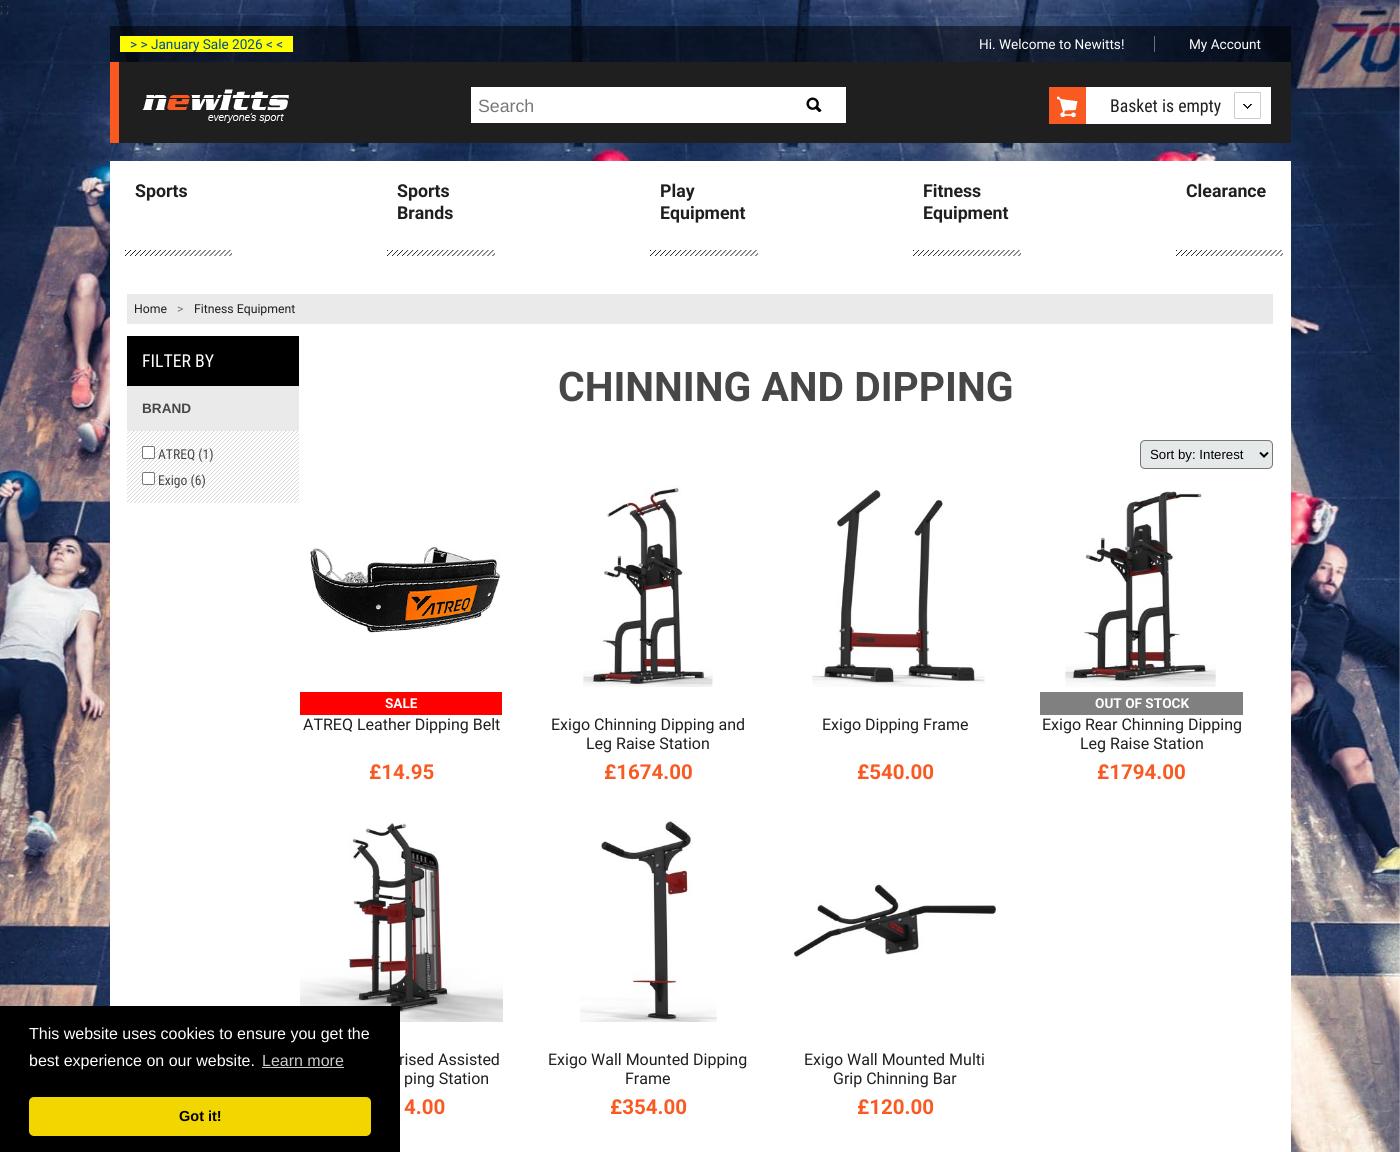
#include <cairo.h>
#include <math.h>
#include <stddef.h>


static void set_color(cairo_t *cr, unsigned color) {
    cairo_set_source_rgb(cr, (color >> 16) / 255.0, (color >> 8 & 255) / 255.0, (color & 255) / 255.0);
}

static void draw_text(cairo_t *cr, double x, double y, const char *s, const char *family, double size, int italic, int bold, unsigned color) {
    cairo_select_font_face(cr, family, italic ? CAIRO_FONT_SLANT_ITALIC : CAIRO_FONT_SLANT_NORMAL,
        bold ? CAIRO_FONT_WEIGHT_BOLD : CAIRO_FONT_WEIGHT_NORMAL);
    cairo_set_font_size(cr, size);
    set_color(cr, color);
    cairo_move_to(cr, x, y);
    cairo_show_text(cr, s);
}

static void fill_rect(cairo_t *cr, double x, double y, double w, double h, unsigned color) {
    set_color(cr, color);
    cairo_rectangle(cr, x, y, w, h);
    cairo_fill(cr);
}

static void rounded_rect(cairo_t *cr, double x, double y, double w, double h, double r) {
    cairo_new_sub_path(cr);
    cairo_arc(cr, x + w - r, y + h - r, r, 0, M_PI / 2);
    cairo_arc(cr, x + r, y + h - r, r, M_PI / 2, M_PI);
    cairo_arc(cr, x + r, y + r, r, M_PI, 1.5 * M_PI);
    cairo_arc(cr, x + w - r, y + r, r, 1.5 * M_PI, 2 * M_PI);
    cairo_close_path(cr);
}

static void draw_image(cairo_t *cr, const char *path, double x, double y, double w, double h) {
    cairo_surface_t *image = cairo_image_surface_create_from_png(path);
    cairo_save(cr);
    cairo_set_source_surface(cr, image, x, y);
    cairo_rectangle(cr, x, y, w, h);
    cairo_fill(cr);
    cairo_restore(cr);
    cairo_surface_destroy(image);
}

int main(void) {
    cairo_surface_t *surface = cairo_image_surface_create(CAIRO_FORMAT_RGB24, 1400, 1152);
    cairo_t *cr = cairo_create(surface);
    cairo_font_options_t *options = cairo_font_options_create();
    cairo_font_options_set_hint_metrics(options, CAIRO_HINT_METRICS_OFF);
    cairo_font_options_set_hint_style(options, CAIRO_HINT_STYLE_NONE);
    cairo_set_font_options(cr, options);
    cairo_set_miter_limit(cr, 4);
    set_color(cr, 0xFFFFFF);
    cairo_paint(cr);
    draw_image(cr, "assets/img1.png", 0, 0, 1400, 1152);
    draw_text(cr, 0, 13, "; ;", "Roboto", 13.6, 0, 0, 0x474747);
    cairo_set_source_rgba(cr, 0, 0, 0, 0.5);
    cairo_rectangle(cr, 110, 26, 1181, 36);
    cairo_fill(cr);
    fill_rect(cr, 120, 36, 173, 16, 0xFFFF00);
    draw_text(cr, 130, 49, "> > January Sale 2026 < <", "Roboto", 13.6, 0, 0, 0x004B91);
    fill_rect(cr, 1154, 36, 1, 16, 0x677173);
    draw_text(cr, 979, 49, "Hi. Welcome to Newitts!", "Roboto", 13.6, 0, 0, 0xFFFFFF);
    draw_text(cr, 1189, 49, "My Account", "Roboto", 13.6, 0, 0, 0xFFFFFF);
    fill_rect(cr, 119, 62, 1172, 81, 0x1F1F1F);
    fill_rect(cr, 110, 62, 9, 81, 0xF95A21);
    draw_image(cr, "assets/img2.png", 142, 89, 147, 35);
    fill_rect(cr, 471, 87, 375, 36, 0xFFFFFF);
    draw_text(cr, 478, 112, "Search", "Liberation Sans", 17.75, 0, 0, 0x777777);
    draw_image(cr, "assets/img3.png", 806, 97, 16, 15);
    fill_rect(cr, 1057, 87, 214, 37, 0xFFFFFF);
    draw_image(cr, "assets/img4.png", 1059, 96, 16, 21);
    draw_image(cr, "assets/img5.png", 1049, 87, 37, 37);
    draw_image(cr, "assets/img6.png", 1234, 92, 27, 27);
    draw_text(cr, 1110, 112, "Basket is empty", "Roboto Condensed", 17.75, 0, 0, 0x1F1F1F);
    fill_rect(cr, 110, 161, 1181, 991, 0xFFFFFF);
    draw_image(cr, "assets/img7.png", 125, 250, 107, 6);
    draw_text(cr, 135, 197, "Sports", "Roboto", 17.75, 0, 1, 0x1F1F1F);
    draw_image(cr, "assets/img8.png", 387, 250, 108, 6);
    draw_text(cr, 397, 197, "Sports", "Roboto", 17.75, 0, 1, 0x1F1F1F);
    draw_text(cr, 397, 219, "Brands", "Roboto", 17.75, 0, 1, 0x1F1F1F);
    draw_image(cr, "assets/img8.png", 650, 250, 108, 6);
    draw_text(cr, 660, 197, "Play", "Roboto", 17.75, 0, 1, 0x1F1F1F);
    draw_text(cr, 660, 219, "Equipment", "Roboto", 17.75, 0, 1, 0x1F1F1F);
    draw_image(cr, "assets/img8.png", 913, 250, 108, 6);
    draw_text(cr, 923, 197, "Fitness", "Roboto", 17.75, 0, 1, 0x1F1F1F);
    draw_text(cr, 923, 219, "Equipment", "Roboto", 17.75, 0, 1, 0x1F1F1F);
    draw_image(cr, "assets/img7.png", 1176, 250, 107, 6);
    draw_text(cr, 1186, 197, "Clearance", "Roboto", 17.75, 0, 1, 0x1F1F1F);
    fill_rect(cr, 127, 294, 1146, 30, 0xEAEAEA);
    draw_text(cr, 134, 313, "Home", "Roboto", 12.25, 0, 0, 0x1F1F1F);
    draw_text(cr, 177, 313, ">", "Roboto", 12.25, 0, 0, 0x777777);
    draw_text(cr, 194, 313, "Fitness Equipment", "Roboto", 12.25, 0, 0, 0x1F1F1F);
    fill_rect(cr, 127, 386, 172, 45, 0xEAEAEA);
    fill_rect(cr, 127, 336, 172, 50, 0x000000);
    draw_text(cr, 142, 367, "FILTER BY", "Roboto Condensed", 17.75, 0, 0, 0xFFFFFF);
    draw_text(cr, 142, 413, "BRAND", "Liberation Sans", 13.6, 0, 1, 0x474747);
    draw_image(cr, "assets/img9.png", 127, 431, 172, 72);
    set_color(cr, 0xFFFFFF);
    rounded_rect(cr, 142.5, 446.5, 12, 12, 1.5);
    cairo_fill_preserve(cr);
    set_color(cr, 0x767676);
    cairo_set_line_width(cr, 1);
    cairo_stroke(cr);
    draw_text(cr, 158, 459, "ATREQ (1)", "Roboto Condensed", 13.6, 0, 0, 0x474747);
    set_color(cr, 0xFFFFFF);
    rounded_rect(cr, 142.5, 472.5, 12, 12, 1.5);
    cairo_fill_preserve(cr);
    set_color(cr, 0x767676);
    cairo_stroke(cr);
    draw_text(cr, 158, 485, "Exigo (6)", "Roboto Condensed", 13.6, 0, 0, 0x474747);
    draw_text(cr, 558, 401, "CHINNING AND DIPPING", "Roboto", 40.75, 0, 1, 0x474747);
    set_color(cr, 0xE6E9EA);
    rounded_rect(cr, 1140.5, 440.5, 132, 28, 4.5);
    cairo_fill_preserve(cr);
    set_color(cr, 0x767676);
    cairo_stroke(cr);
    cairo_new_path(cr);
    cairo_move_to(cr, 1260, 452.5);
    cairo_line_to(cr, 1264, 456.5);
    cairo_line_to(cr, 1268, 452.5);
    set_color(cr, 0x000000);
    cairo_set_line_width(cr, 2);
    cairo_stroke(cr);
    draw_text(cr, 1150, 459, "Sort by: Interest", "Liberation Sans", 13.25, 0, 0, 0x000000);
    draw_image(cr, "assets/img10.png", 310, 547, 191, 86);
    fill_rect(cr, 300, 692, 202, 23, 0xFF0000);
    draw_text(cr, 385, 708, "SALE", "Roboto", 13.6, 0, 1, 0xFFFFFF);
    draw_text(cr, 303, 730, "ATREQ Leather Dipping Belt", "Roboto", 16, 0, 0, 0x1F1F1F);
    draw_text(cr, 369, 779, "£14.95", "Roboto", 20.5, 0, 1, 0xF95A21);
    draw_image(cr, "assets/img11.png", 580, 485, 133, 202);
    draw_text(cr, 551, 730, "Exigo Chinning Dipping and", "Roboto", 16, 0, 0, 0x1F1F1F);
    draw_text(cr, 586, 749, "Leg Raise Station", "Roboto", 16, 0, 0, 0x1F1F1F);
    draw_text(cr, 604, 779, "£1674.00", "Roboto", 20.5, 0, 1, 0xF95A21);
    draw_image(cr, "assets/img12.png", 812, 489, 173, 198);
    draw_text(cr, 822, 730, "Exigo Dipping Frame", "Roboto", 16, 0, 0, 0x1F1F1F);
    draw_text(cr, 857, 779, "£540.00", "Roboto", 20.5, 0, 1, 0xF95A21);
    draw_image(cr, "assets/img13.png", 1065, 491, 151, 196);
    fill_rect(cr, 1040, 692, 203, 23, 0x808080);
    draw_text(cr, 1095, 708, "OUT OF STOCK", "Roboto", 13.6, 0, 1, 0xFFFFFF);
    draw_text(cr, 1042, 730, "Exigo Rear Chinning Dipping", "Roboto", 16, 0, 0, 0x1F1F1F);
    draw_text(cr, 1080, 749, "Leg Raise Station", "Roboto", 16, 0, 0, 0x1F1F1F);
    draw_text(cr, 1097, 779, "£1794.00", "Roboto", 20.5, 0, 1, 0xF95A21);
    draw_image(cr, "assets/img14.png", 300, 823, 203, 199);
    draw_text(cr, 399, 1065, "rised Assisted", "Roboto", 16, 0, 0, 0x1F1F1F);
    draw_text(cr, 404, 1084, "ping Station", "Roboto", 16, 0, 0, 0x1F1F1F);
    draw_text(cr, 404, 1114, "4.00", "Roboto", 20.5, 0, 1, 0xF95A21);
    draw_image(cr, "assets/img15.png", 580, 820, 137, 202);
    draw_text(cr, 548, 1065, "Exigo Wall Mounted Dipping", "Roboto", 16, 0, 0, 0x1F1F1F);
    draw_text(cr, 625, 1084, "Frame", "Roboto", 16, 0, 0, 0x1F1F1F);
    draw_text(cr, 610, 1114, "£354.00", "Roboto", 20.5, 0, 1, 0xF95A21);
    draw_image(cr, "assets/img16.png", 794, 884, 202, 76);
    draw_text(cr, 804, 1065, "Exigo Wall Mounted Multi", "Roboto", 16, 0, 0, 0x1F1F1F);
    draw_text(cr, 833, 1084, "Grip Chinning Bar", "Roboto", 16, 0, 0, 0x1F1F1F);
    draw_text(cr, 857, 1114, "£120.00", "Roboto", 20.5, 0, 1, 0xF95A21);
    fill_rect(cr, 0, 1006, 400, 146, 0x000000);
    draw_text(cr, 29, 1039, "This website uses cookies to ensure you get the", "Liberation Sans", 16, 0, 0, 0xFFFFFF);
    draw_text(cr, 29, 1066, "best experience on our website.", "Liberation Sans", 16, 0, 0, 0xFFFFFF);
    draw_text(cr, 262, 1066, "Learn more", "Liberation Sans", 16, 0, 0, 0xCCCCCC);
    fill_rect(cr, 262, 1067, 82, 1, 0xCCCCCC);
    set_color(cr, 0xF1D600);
    rounded_rect(cr, 29, 1097, 342, 39, 5);
    cairo_fill(cr);
    draw_text(cr, 179, 1121, "Got it!", "Liberation Sans", 14.5, 0, 1, 0x000000);
    cairo_surface_write_to_png(surface, "output.png");
    cairo_font_options_destroy(options);
    cairo_destroy(cr);
    cairo_surface_destroy(surface);
    return 0;
}
